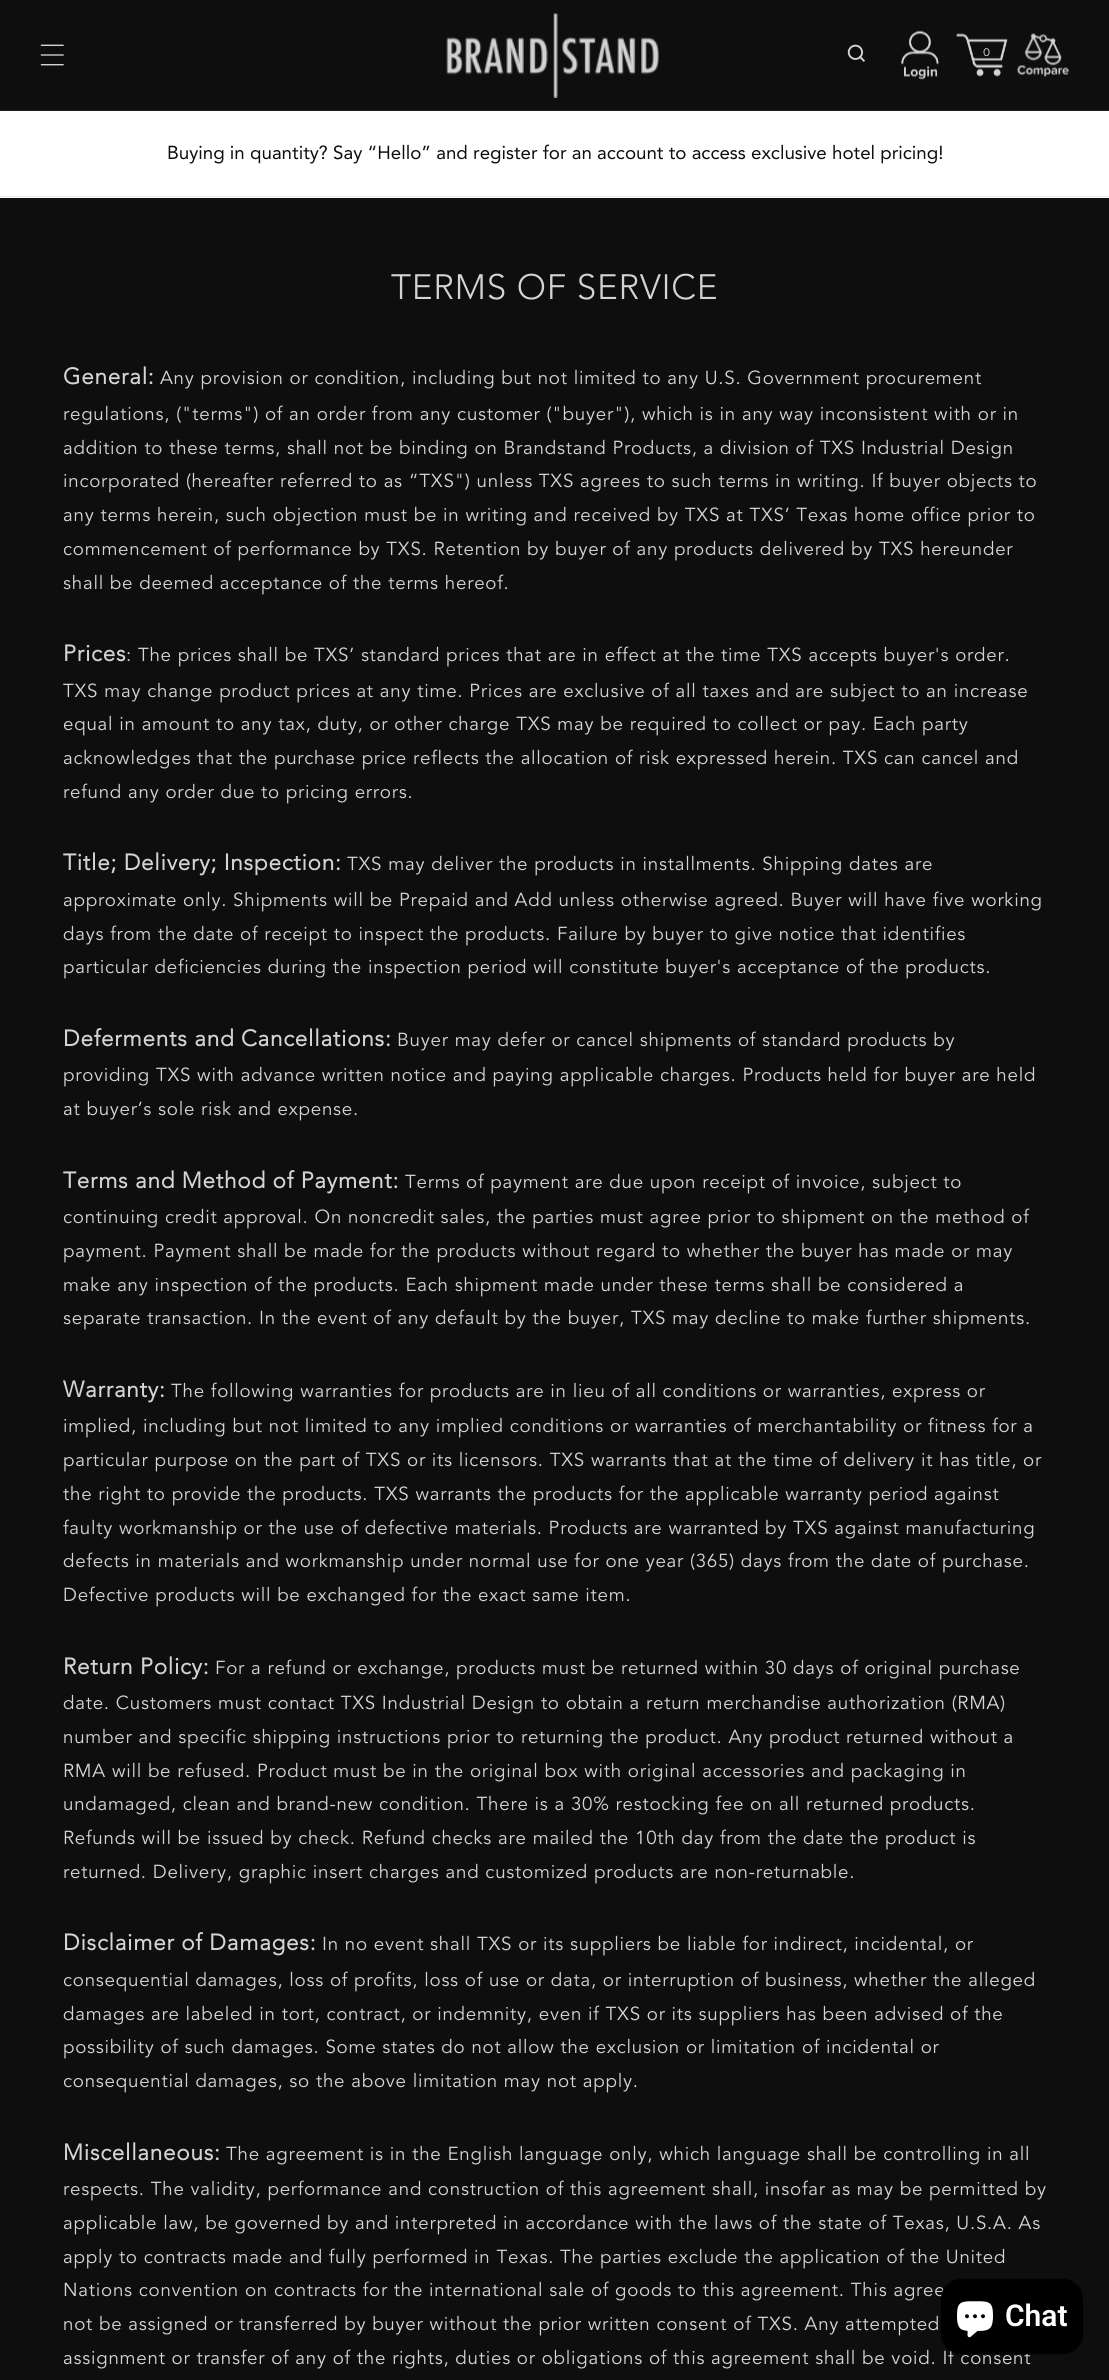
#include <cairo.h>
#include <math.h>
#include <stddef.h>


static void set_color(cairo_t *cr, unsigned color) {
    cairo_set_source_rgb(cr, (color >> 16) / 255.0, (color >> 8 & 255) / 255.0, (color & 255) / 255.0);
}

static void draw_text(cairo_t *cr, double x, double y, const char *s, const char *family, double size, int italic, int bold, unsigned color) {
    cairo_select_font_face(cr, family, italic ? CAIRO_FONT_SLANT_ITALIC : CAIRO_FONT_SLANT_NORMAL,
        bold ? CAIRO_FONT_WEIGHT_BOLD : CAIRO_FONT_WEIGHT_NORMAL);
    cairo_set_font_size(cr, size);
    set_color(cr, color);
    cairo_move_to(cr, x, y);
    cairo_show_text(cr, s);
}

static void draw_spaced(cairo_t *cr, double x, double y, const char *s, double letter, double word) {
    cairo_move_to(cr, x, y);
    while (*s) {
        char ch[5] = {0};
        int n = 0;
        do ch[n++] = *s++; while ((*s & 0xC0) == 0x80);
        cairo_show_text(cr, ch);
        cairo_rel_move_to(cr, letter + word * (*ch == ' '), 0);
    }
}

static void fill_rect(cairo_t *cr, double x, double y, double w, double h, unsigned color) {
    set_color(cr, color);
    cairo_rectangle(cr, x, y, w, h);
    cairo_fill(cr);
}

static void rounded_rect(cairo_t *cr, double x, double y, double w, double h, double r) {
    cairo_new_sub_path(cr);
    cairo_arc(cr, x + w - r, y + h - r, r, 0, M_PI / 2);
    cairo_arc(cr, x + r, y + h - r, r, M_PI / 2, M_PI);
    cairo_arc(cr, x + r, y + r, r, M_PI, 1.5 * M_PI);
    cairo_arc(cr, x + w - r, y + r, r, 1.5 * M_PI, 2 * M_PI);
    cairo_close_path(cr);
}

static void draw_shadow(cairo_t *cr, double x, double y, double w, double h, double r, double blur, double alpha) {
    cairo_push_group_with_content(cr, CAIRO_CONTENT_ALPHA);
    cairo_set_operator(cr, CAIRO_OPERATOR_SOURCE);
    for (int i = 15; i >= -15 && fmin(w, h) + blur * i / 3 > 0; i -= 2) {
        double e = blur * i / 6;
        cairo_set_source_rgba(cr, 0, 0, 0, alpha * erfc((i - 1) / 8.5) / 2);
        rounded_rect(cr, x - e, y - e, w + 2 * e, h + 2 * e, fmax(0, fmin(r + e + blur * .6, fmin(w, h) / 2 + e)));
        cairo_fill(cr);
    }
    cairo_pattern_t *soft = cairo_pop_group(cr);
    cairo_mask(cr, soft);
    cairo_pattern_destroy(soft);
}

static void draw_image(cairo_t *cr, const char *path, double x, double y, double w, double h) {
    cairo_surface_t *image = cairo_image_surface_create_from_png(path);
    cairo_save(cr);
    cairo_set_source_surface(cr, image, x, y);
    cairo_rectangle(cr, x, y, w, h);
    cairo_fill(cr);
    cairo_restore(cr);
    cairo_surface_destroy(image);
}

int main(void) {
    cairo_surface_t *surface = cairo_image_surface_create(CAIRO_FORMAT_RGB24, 1109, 2380);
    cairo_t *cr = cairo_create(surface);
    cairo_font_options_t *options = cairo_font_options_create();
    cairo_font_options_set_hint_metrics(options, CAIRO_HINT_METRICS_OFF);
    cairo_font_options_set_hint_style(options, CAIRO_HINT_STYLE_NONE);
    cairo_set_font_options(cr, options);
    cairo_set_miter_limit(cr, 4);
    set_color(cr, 0x0E0E0E);
    cairo_paint(cr);
    fill_rect(cr, 0, 110, 1109, 1, 0x1E1E1E);
    draw_image(cr, "assets/img1.png", 40, 44, 24, 22);
    draw_image(cr, "assets/img2.png", 446, 13, 213, 85);
    draw_image(cr, "assets/img3.png", 847, 44, 18, 18);
    draw_image(cr, "assets/img4.png", 901, 30, 38, 50);
    draw_image(cr, "assets/img5.png", 956, 33, 52, 44);
    draw_text(cr, 983, 56, "0", "Figtree", 11, 0, 0, 0xD4D4D4);
    draw_image(cr, "assets/img6.png", 1017, 33, 52, 44);
    fill_rect(cr, 0, 111, 1109, 87, 0xFFFFFF);
    fill_rect(cr, 0, 196, 1109, 1, 0xECECEC);
    draw_text(cr, 167, 159, "Buying in quantity? Say “Hello” and register for an account to access exclusive hotel pricing!", "Avenir", 18.75, 0, 0, 0x0E0E0E);
    cairo_select_font_face(cr, "Avenir Light", CAIRO_FONT_SLANT_NORMAL, CAIRO_FONT_WEIGHT_NORMAL);
    cairo_set_font_size(cr, 35);
    set_color(cr, 0xD4D4D4);
    draw_spaced(cr, 391, 299, "TERMS OF SERVICE", 0.75, 0);
    cairo_select_font_face(cr, "Avenir", CAIRO_FONT_SLANT_NORMAL, CAIRO_FONT_WEIGHT_BOLD);
    cairo_set_font_size(cr, 22.5);
    draw_spaced(cr, 63, 384, "General:", 0.75, 0);
    cairo_select_font_face(cr, "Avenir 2", CAIRO_FONT_SLANT_NORMAL, CAIRO_FONT_WEIGHT_NORMAL);
    cairo_set_font_size(cr, 18.75);
    draw_spaced(cr, 160, 384, "Any provision or condition, including but not limited to any U.S. Government procurement", 0.75, 0);
    draw_spaced(cr, 63, 420, "regulations, (\"terms\") of an order from any customer (\"buyer\"), which is in any way inconsistent with or in", 0.75, 0);
    draw_spaced(cr, 63, 454, "addition to these terms, shall not be binding on Brandstand Products, a division of TXS Industrial Design", 0.75, 0);
    draw_spaced(cr, 63, 487, "incorporated (hereafter referred to as “TXS\") unless TXS agrees to such terms in writing. If buyer objects to", 0.75, 0);
    draw_spaced(cr, 63, 521, "any terms herein, such objection must be in writing and received by TXS at TXS’ Texas home office prior to", 0.75, 0);
    draw_spaced(cr, 63, 555, "commencement of performance by TXS. Retention by buyer of any products delivered by TXS hereunder", 0.75, 0);
    draw_spaced(cr, 63, 589, "shall be deemed acceptance of the terms hereof.", 0.75, 0);
    cairo_select_font_face(cr, "Avenir", CAIRO_FONT_SLANT_NORMAL, CAIRO_FONT_WEIGHT_BOLD);
    cairo_set_font_size(cr, 22.5);
    draw_spaced(cr, 63, 661, "Prices", 0.75, 0);
    cairo_select_font_face(cr, "Avenir 2", CAIRO_FONT_SLANT_NORMAL, CAIRO_FONT_WEIGHT_NORMAL);
    cairo_set_font_size(cr, 18.75);
    draw_spaced(cr, 126, 661, ": The prices shall be TXS’ standard prices that are in effect at the time TXS accepts buyer's order.", 0.75, 0);
    draw_spaced(cr, 63, 697, "TXS may change product prices at any time. Prices are exclusive of all taxes and are subject to an increase", 0.75, 0);
    draw_spaced(cr, 63, 730, "equal in amount to any tax, duty, or other charge TXS may be required to collect or pay. Each party", 0.75, 0);
    draw_spaced(cr, 63, 764, "acknowledges that the purchase price reflects the allocation of risk expressed herein. TXS can cancel and", 0.75, 0);
    draw_spaced(cr, 63, 798, "refund any order due to pricing errors.", 0.75, 0);
    cairo_select_font_face(cr, "Avenir", CAIRO_FONT_SLANT_NORMAL, CAIRO_FONT_WEIGHT_BOLD);
    cairo_set_font_size(cr, 22.5);
    draw_spaced(cr, 63, 870, "Title; Delivery; Inspection:", 0.75, 0);
    cairo_select_font_face(cr, "Avenir 2", CAIRO_FONT_SLANT_NORMAL, CAIRO_FONT_WEIGHT_NORMAL);
    cairo_set_font_size(cr, 18.75);
    draw_spaced(cr, 347, 870, "TXS may deliver the products in installments. Shipping dates are", 0.75, 0);
    draw_spaced(cr, 63, 906, "approximate only. Shipments will be Prepaid and Add unless otherwise agreed. Buyer will have five working", 0.75, 0);
    draw_spaced(cr, 63, 940, "days from the date of receipt to inspect the products. Failure by buyer to give notice that identifies", 0.75, 0);
    draw_spaced(cr, 63, 973, "particular deficiencies during the inspection period will constitute buyer's acceptance of the products.", 0.75, 0);
    cairo_select_font_face(cr, "Avenir", CAIRO_FONT_SLANT_NORMAL, CAIRO_FONT_WEIGHT_BOLD);
    cairo_set_font_size(cr, 22.5);
    draw_spaced(cr, 63, 1046, "Deferments and Cancellations:", 0.75, 0);
    cairo_select_font_face(cr, "Avenir 2", CAIRO_FONT_SLANT_NORMAL, CAIRO_FONT_WEIGHT_NORMAL);
    cairo_set_font_size(cr, 18.75);
    draw_spaced(cr, 397, 1046, "Buyer may defer or cancel shipments of standard products by", 0.75, 0);
    draw_spaced(cr, 63, 1081, "providing TXS with advance written notice and paying applicable charges. Products held for buyer are held", 0.75, 0);
    draw_spaced(cr, 63, 1115, "at buyer’s sole risk and expense.", 0.75, 0);
    cairo_select_font_face(cr, "Avenir", CAIRO_FONT_SLANT_NORMAL, CAIRO_FONT_WEIGHT_BOLD);
    cairo_set_font_size(cr, 22.5);
    draw_spaced(cr, 63, 1188, "Terms and Method of Payment:", 0.75, 0);
    cairo_select_font_face(cr, "Avenir 2", CAIRO_FONT_SLANT_NORMAL, CAIRO_FONT_WEIGHT_NORMAL);
    cairo_set_font_size(cr, 18.75);
    draw_spaced(cr, 405, 1188, "Terms of payment are due upon receipt of invoice, subject to", 0.75, 0);
    draw_spaced(cr, 63, 1223, "continuing credit approval. On noncredit sales, the parties must agree prior to shipment on the method of", 0.75, 0);
    draw_spaced(cr, 63, 1257, "payment. Payment shall be made for the products without regard to whether the buyer has made or may", 0.75, 0);
    draw_spaced(cr, 63, 1291, "make any inspection of the products. Each shipment made under these terms shall be considered a", 0.75, 0);
    draw_spaced(cr, 63, 1324, "separate transaction. In the event of any default by the buyer, TXS may decline to make further shipments.", 0.75, 0);
    cairo_select_font_face(cr, "Avenir", CAIRO_FONT_SLANT_NORMAL, CAIRO_FONT_WEIGHT_BOLD);
    cairo_set_font_size(cr, 22.5);
    draw_spaced(cr, 63, 1397, "Warranty:", 0.75, 0);
    cairo_select_font_face(cr, "Avenir 2", CAIRO_FONT_SLANT_NORMAL, CAIRO_FONT_WEIGHT_NORMAL);
    cairo_set_font_size(cr, 18.75);
    draw_spaced(cr, 171, 1397, "The following warranties for products are in lieu of all conditions or warranties, express or", 0.75, 0);
    draw_spaced(cr, 63, 1432, "implied, including but not limited to any implied conditions or warranties of merchantability or fitness for a", 0.75, 0);
    draw_spaced(cr, 63, 1466, "particular purpose on the part of TXS or its licensors. TXS warrants that at the time of delivery it has title, or", 0.75, 0);
    draw_spaced(cr, 63, 1500, "the right to provide the products. TXS warrants the products for the applicable warranty period against", 0.75, 0);
    draw_spaced(cr, 63, 1534, "faulty workmanship or the use of defective materials. Products are warranted by TXS against manufacturing", 0.75, 0);
    draw_spaced(cr, 63, 1567, "defects in materials and workmanship under normal use for one year (365) days from the date of purchase.", 0.75, 0);
    draw_spaced(cr, 63, 1601, "Defective products will be exchanged for the exact same item.", 0.75, 0);
    cairo_select_font_face(cr, "Avenir", CAIRO_FONT_SLANT_NORMAL, CAIRO_FONT_WEIGHT_BOLD);
    cairo_set_font_size(cr, 22.5);
    draw_spaced(cr, 63, 1674, "Return Policy:", 0.75, 0);
    cairo_select_font_face(cr, "Avenir 2", CAIRO_FONT_SLANT_NORMAL, CAIRO_FONT_WEIGHT_NORMAL);
    cairo_set_font_size(cr, 18.75);
    draw_spaced(cr, 215, 1674, "For a refund or exchange, products must be returned within 30 days of original purchase", 0.75, 0);
    draw_spaced(cr, 63, 1709, "date. Customers must contact TXS Industrial Design to obtain a return merchandise authorization (RMA)", 0.75, 0);
    draw_spaced(cr, 63, 1743, "number and specific shipping instructions prior to returning the product. Any product returned without a", 0.75, 0);
    draw_spaced(cr, 63, 1777, "RMA will be refused. Product must be in the original box with original accessories and packaging in", 0.75, 0);
    draw_spaced(cr, 63, 1810, "undamaged, clean and brand-new condition. There is a 30% restocking fee on all returned products.", 0.75, 0);
    draw_spaced(cr, 63, 1844, "Refunds will be issued by check. Refund checks are mailed the 10th day from the date the product is", 0.75, 0);
    draw_spaced(cr, 63, 1878, "returned. Delivery, graphic insert charges and customized products are non-returnable.", 0.75, 0);
    cairo_select_font_face(cr, "Avenir", CAIRO_FONT_SLANT_NORMAL, CAIRO_FONT_WEIGHT_BOLD);
    cairo_set_font_size(cr, 22.5);
    draw_spaced(cr, 63, 1950, "Disclaimer of Damages:", 0.75, 0);
    cairo_select_font_face(cr, "Avenir 2", CAIRO_FONT_SLANT_NORMAL, CAIRO_FONT_WEIGHT_NORMAL);
    cairo_set_font_size(cr, 18.75);
    draw_spaced(cr, 322, 1950, "In no event shall TXS or its suppliers be liable for indirect, incidental, or", 0.75, 0);
    draw_spaced(cr, 63, 1986, "consequential damages, loss of profits, loss of use or data, or interruption of business, whether the alleged", 0.75, 0);
    draw_spaced(cr, 63, 2020, "damages are labeled in tort, contract, or indemnity, even if TXS or its suppliers has been advised of the", 0.75, 0);
    draw_spaced(cr, 63, 2053, "possibility of such damages. Some states do not allow the exclusion or limitation of incidental or", 0.75, 0);
    draw_spaced(cr, 63, 2087, "consequential damages, so the above limitation may not apply.", 0.75, 0);
    cairo_select_font_face(cr, "Avenir", CAIRO_FONT_SLANT_NORMAL, CAIRO_FONT_WEIGHT_BOLD);
    cairo_set_font_size(cr, 22.5);
    draw_spaced(cr, 63, 2160, "Miscellaneous:", 0.75, 0);
    cairo_select_font_face(cr, "Avenir 2", CAIRO_FONT_SLANT_NORMAL, CAIRO_FONT_WEIGHT_NORMAL);
    cairo_set_font_size(cr, 18.75);
    draw_spaced(cr, 226, 2160, "The agreement is in the English language only, which language shall be controlling in all", 0.75, 0);
    draw_spaced(cr, 63, 2195, "respects. The validity, performance and construction of this agreement shall, insofar as may be permitted by", 0.75, 0);
    draw_spaced(cr, 63, 2229, "applicable law, be governed by and interpreted in accordance with the laws of the state of Texas, U.S.A. As", 0.75, 0);
    draw_spaced(cr, 63, 2263, "apply to contracts made and fully performed in Texas. The parties exclude the application of the United", 0.75, 0);
    draw_spaced(cr, 63, 2296, "Nations convention on contracts for the international sale of goods to this agreement. This agree", 0.75, 0);
    draw_spaced(cr, 63, 2330, "not be assigned or transferred by buyer without the prior written consent of TXS. Any attempted", 0.75, 0);
    draw_spaced(cr, 63, 2364, "assignment or transfer of any of the rights, duties or obligations of this agreement shall be void. If consent", 0.75, 0);
    set_color(cr, 0x000000);
    draw_shadow(cr, 941, 2279, 142, 75, 20, 3, 0.15);
    set_color(cr, 0x000000);
    rounded_rect(cr, 941, 2279, 142, 75, 20);
    cairo_fill(cr);
    draw_image(cr, "assets/img7.png", 957, 2301, 36, 37);
    draw_text(cr, 1005, 2326, "Chat", "Roboto SemiBold", 30, 0, 0, 0xFFFFFF);
    cairo_surface_write_to_png(surface, "output.png");
    cairo_font_options_destroy(options);
    cairo_destroy(cr);
    cairo_surface_destroy(surface);
    return 0;
}
